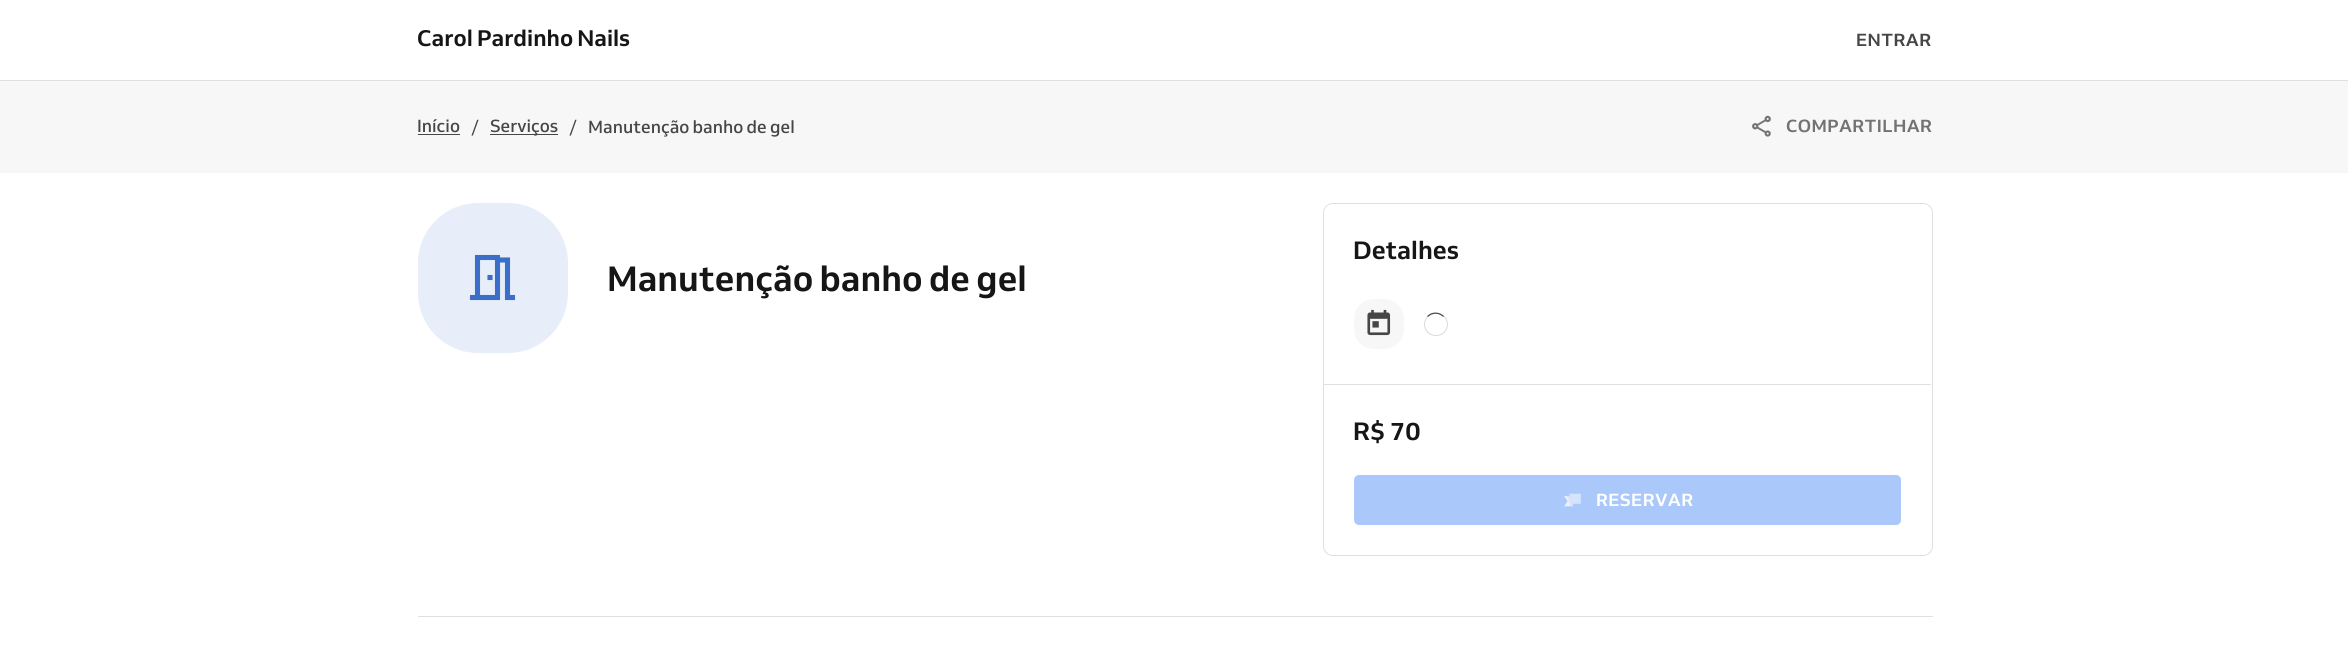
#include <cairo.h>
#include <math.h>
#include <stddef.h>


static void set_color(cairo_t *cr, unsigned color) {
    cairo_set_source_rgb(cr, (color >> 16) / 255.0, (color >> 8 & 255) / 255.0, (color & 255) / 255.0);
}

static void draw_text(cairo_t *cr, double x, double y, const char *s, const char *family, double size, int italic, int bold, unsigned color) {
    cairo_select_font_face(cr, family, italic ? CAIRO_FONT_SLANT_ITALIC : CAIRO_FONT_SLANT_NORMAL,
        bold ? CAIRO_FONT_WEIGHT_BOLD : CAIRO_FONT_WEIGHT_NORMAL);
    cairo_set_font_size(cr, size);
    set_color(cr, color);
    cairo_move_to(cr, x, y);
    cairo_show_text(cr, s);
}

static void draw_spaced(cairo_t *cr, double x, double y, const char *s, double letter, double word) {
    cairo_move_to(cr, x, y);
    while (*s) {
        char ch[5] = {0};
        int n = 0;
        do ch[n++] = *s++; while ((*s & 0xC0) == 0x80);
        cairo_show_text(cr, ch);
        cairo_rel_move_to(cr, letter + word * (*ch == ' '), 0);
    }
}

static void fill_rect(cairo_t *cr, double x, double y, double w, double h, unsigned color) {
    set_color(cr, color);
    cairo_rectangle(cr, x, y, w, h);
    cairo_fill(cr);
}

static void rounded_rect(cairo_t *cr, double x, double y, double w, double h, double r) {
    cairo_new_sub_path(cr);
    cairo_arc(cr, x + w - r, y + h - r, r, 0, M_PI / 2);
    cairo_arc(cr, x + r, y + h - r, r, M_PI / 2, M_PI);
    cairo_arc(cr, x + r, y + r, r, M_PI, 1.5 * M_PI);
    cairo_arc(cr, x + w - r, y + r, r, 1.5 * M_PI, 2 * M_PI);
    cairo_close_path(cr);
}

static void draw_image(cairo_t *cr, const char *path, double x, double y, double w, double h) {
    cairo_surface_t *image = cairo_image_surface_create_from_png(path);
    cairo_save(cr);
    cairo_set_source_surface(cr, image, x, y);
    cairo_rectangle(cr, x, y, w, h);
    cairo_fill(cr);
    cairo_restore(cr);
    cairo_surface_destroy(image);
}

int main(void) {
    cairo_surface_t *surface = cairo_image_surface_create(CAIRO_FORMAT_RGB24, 2348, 662);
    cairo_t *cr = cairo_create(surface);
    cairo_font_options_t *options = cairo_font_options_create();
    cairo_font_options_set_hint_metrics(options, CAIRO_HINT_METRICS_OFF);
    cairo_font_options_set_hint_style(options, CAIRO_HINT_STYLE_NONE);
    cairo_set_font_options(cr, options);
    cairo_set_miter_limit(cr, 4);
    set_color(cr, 0xFFFFFF);
    cairo_paint(cr);
    fill_rect(cr, 0, 80, 2348, 1, 0xE0E0E0);
    draw_text(cr, 417, 46, "Carol Pardinho Nails", "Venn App", 22.5, 0, 1, 0x161616);
    cairo_set_font_size(cr, 17.5);
    set_color(cr, 0x464646);
    draw_spaced(cr, 1856, 46, "ENTRAR", 0.4, 0);
    fill_rect(cr, 0, 81, 2348, 92, 0xF7F7F7);
    draw_text(cr, 417, 132, "Início", "Venn App Medium", 17.5, 0, 0, 0x464646);
    fill_rect(cr, 418, 134, 42, 1, 0x464646);
    draw_text(cr, 471, 133, "/", "Venn App", 17.5, 0, 0, 0x464646);
    fill_rect(cr, 490, 134, 68, 1, 0x464646);
    draw_text(cr, 490, 132, "Serviços", "Venn App Medium", 17.5, 0, 0, 0x464646);
    draw_text(cr, 569, 133, "/", "Venn App", 17.5, 0, 0, 0x464646);
    draw_text(cr, 588, 133, "Manutenção banho de gel", "Venn App Medium", 17.5, 0, 0, 0x464646);
    draw_image(cr, "assets/img1.png", 1752, 115, 19, 22);
    cairo_select_font_face(cr, "Venn App", CAIRO_FONT_SLANT_NORMAL, CAIRO_FONT_WEIGHT_BOLD);
    set_color(cr, 0x737373);
    draw_spaced(cr, 1786, 132, "COMPARTILHAR", 0.4, 0);
    set_color(cr, 0xE7EEF9);
    rounded_rect(cr, 418, 203, 150, 150, 60);
    cairo_fill(cr);
    draw_image(cr, "assets/img2.png", 469, 254, 47, 47);
    draw_text(cr, 607, 291, "Manutenção banho de gel", "Venn App", 35, 0, 1, 0x161616);
    rounded_rect(cr, 1323.5, 203.5, 609, 352, 9.5);
    set_color(cr, 0xE0E0E0);
    cairo_set_line_width(cr, 1);
    cairo_stroke(cr);
    draw_text(cr, 1353, 259, "Detalhes", "Venn App", 25, 0, 1, 0x161616);
    set_color(cr, 0xF7F7F7);
    rounded_rect(cr, 1354, 299, 50, 50, 20);
    cairo_fill(cr);
    draw_image(cr, "assets/img3.png", 1367, 309, 24, 27);
    rounded_rect(cr, 1424.5, 313.5, 23, 22, 11);
    set_color(cr, 0xDADADA);
    cairo_stroke(cr);
    cairo_new_path(cr);
    cairo_move_to(cr, 1427.5, 316.5);
    cairo_curve_to(cr, 1432, 312, 1439, 312, 1443.5, 316.5);
    set_color(cr, 0x464646);
    cairo_set_line_width(cr, 1.2);
    cairo_stroke(cr);
    fill_rect(cr, 1324, 384, 607, 1, 0xE0E0E0);
    draw_text(cr, 1353, 440, "R$ 70", "Venn App", 25, 0, 1, 0x161616);
    set_color(cr, 0xABC8FA);
    rounded_rect(cr, 1354, 475, 547, 50, 5);
    cairo_fill(cr);
    draw_image(cr, "assets/img4.png", 1564, 493, 17, 14);
    cairo_set_font_size(cr, 17.5);
    set_color(cr, 0xFFFFFF);
    draw_spaced(cr, 1596, 506, "RESERVAR", 0.4, 0);
    fill_rect(cr, 418, 616, 1515, 1, 0xE0E0E0);
    cairo_surface_write_to_png(surface, "output.png");
    cairo_font_options_destroy(options);
    cairo_destroy(cr);
    cairo_surface_destroy(surface);
    return 0;
}
